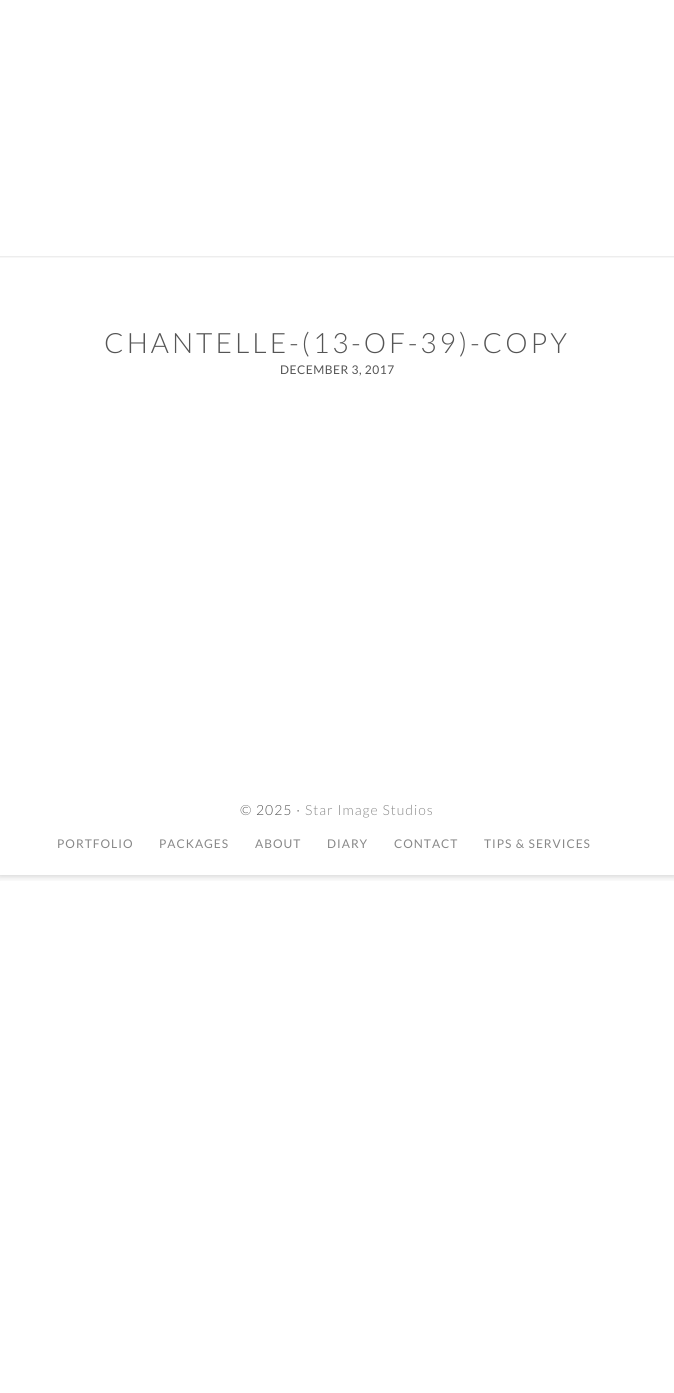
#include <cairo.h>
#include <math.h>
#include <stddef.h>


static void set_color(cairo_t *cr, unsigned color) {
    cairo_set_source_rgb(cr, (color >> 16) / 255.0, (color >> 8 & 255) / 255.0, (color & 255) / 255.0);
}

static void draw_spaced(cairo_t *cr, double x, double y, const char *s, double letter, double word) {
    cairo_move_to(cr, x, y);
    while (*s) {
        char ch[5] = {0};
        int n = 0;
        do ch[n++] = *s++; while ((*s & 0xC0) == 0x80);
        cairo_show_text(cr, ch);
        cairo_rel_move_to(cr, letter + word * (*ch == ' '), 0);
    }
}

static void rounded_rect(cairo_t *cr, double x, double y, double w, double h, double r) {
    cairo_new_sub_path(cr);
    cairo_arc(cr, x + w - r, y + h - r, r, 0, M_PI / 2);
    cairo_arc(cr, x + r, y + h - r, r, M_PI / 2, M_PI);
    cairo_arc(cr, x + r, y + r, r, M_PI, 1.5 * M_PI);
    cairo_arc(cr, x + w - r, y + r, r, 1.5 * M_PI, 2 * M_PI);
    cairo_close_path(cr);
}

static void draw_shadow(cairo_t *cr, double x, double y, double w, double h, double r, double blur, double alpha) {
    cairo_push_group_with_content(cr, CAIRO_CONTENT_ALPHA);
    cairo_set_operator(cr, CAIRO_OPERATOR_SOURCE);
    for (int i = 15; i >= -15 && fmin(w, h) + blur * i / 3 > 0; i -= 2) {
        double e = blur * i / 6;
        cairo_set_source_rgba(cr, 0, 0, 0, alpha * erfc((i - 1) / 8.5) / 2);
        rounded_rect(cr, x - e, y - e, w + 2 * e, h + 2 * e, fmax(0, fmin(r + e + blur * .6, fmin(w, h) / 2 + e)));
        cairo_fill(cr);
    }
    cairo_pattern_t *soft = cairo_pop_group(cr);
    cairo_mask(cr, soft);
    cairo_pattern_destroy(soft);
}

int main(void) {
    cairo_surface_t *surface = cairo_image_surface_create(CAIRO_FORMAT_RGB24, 674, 1393);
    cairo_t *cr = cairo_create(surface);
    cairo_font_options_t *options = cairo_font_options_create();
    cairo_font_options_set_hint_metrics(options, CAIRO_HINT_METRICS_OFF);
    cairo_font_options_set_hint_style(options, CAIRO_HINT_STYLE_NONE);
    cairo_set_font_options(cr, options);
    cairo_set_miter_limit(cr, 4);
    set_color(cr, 0xFFFFFF);
    cairo_paint(cr);
    cairo_save(cr);
    cairo_rectangle(cr, 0, 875, 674, 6);
    cairo_clip(cr);
    set_color(cr, 0x000000);
    draw_shadow(cr, -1, -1, 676, 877, 0, 4, 0.2);
    cairo_restore(cr);
    cairo_save(cr);
    cairo_rectangle(cr, 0, 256, 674, 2);
    cairo_clip(cr);
    set_color(cr, 0x000000);
    draw_shadow(cr, -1, -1, 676, 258, 0, 1, 0.1);
    cairo_restore(cr);
    cairo_select_font_face(cr, "Lato Light", CAIRO_FONT_SLANT_NORMAL, CAIRO_FONT_WEIGHT_NORMAL);
    cairo_set_font_size(cr, 28);
    set_color(cr, 0x555555);
    draw_spaced(cr, 104, 353, "CHANTELLE-(13-OF-39)-COPY", 3, 0);
    cairo_select_font_face(cr, "Lato", CAIRO_FONT_SLANT_NORMAL, CAIRO_FONT_WEIGHT_NORMAL);
    cairo_set_font_size(cr, 12);
    draw_spaced(cr, 280, 374, "DECEMBER 3, 2017", 0.5, 0);
    cairo_select_font_face(cr, "Lato Light", CAIRO_FONT_SLANT_NORMAL, CAIRO_FONT_WEIGHT_NORMAL);
    cairo_set_font_size(cr, 14);
    draw_spaced(cr, 240, 815, "© 2025 ·", 1, 0);
    set_color(cr, 0x888888);
    draw_spaced(cr, 305, 815, "Star Image Studios", 1, 0);
    cairo_select_font_face(cr, "Lato", CAIRO_FONT_SLANT_NORMAL, CAIRO_FONT_WEIGHT_NORMAL);
    cairo_set_font_size(cr, 12);
    draw_spaced(cr, 57, 848, "PORTFOLIO", 1, 0);
    draw_spaced(cr, 159, 848, "PACKAGES", 1, 0);
    draw_spaced(cr, 255, 848, "ABOUT", 1, 0);
    draw_spaced(cr, 327, 848, "DIARY", 1, 0);
    draw_spaced(cr, 394, 848, "CONTACT", 1, 0);
    draw_spaced(cr, 484, 848, "TIPS & SERVICES", 1, 0);
    cairo_surface_write_to_png(surface, "output.png");
    cairo_font_options_destroy(options);
    cairo_destroy(cr);
    cairo_surface_destroy(surface);
    return 0;
}
